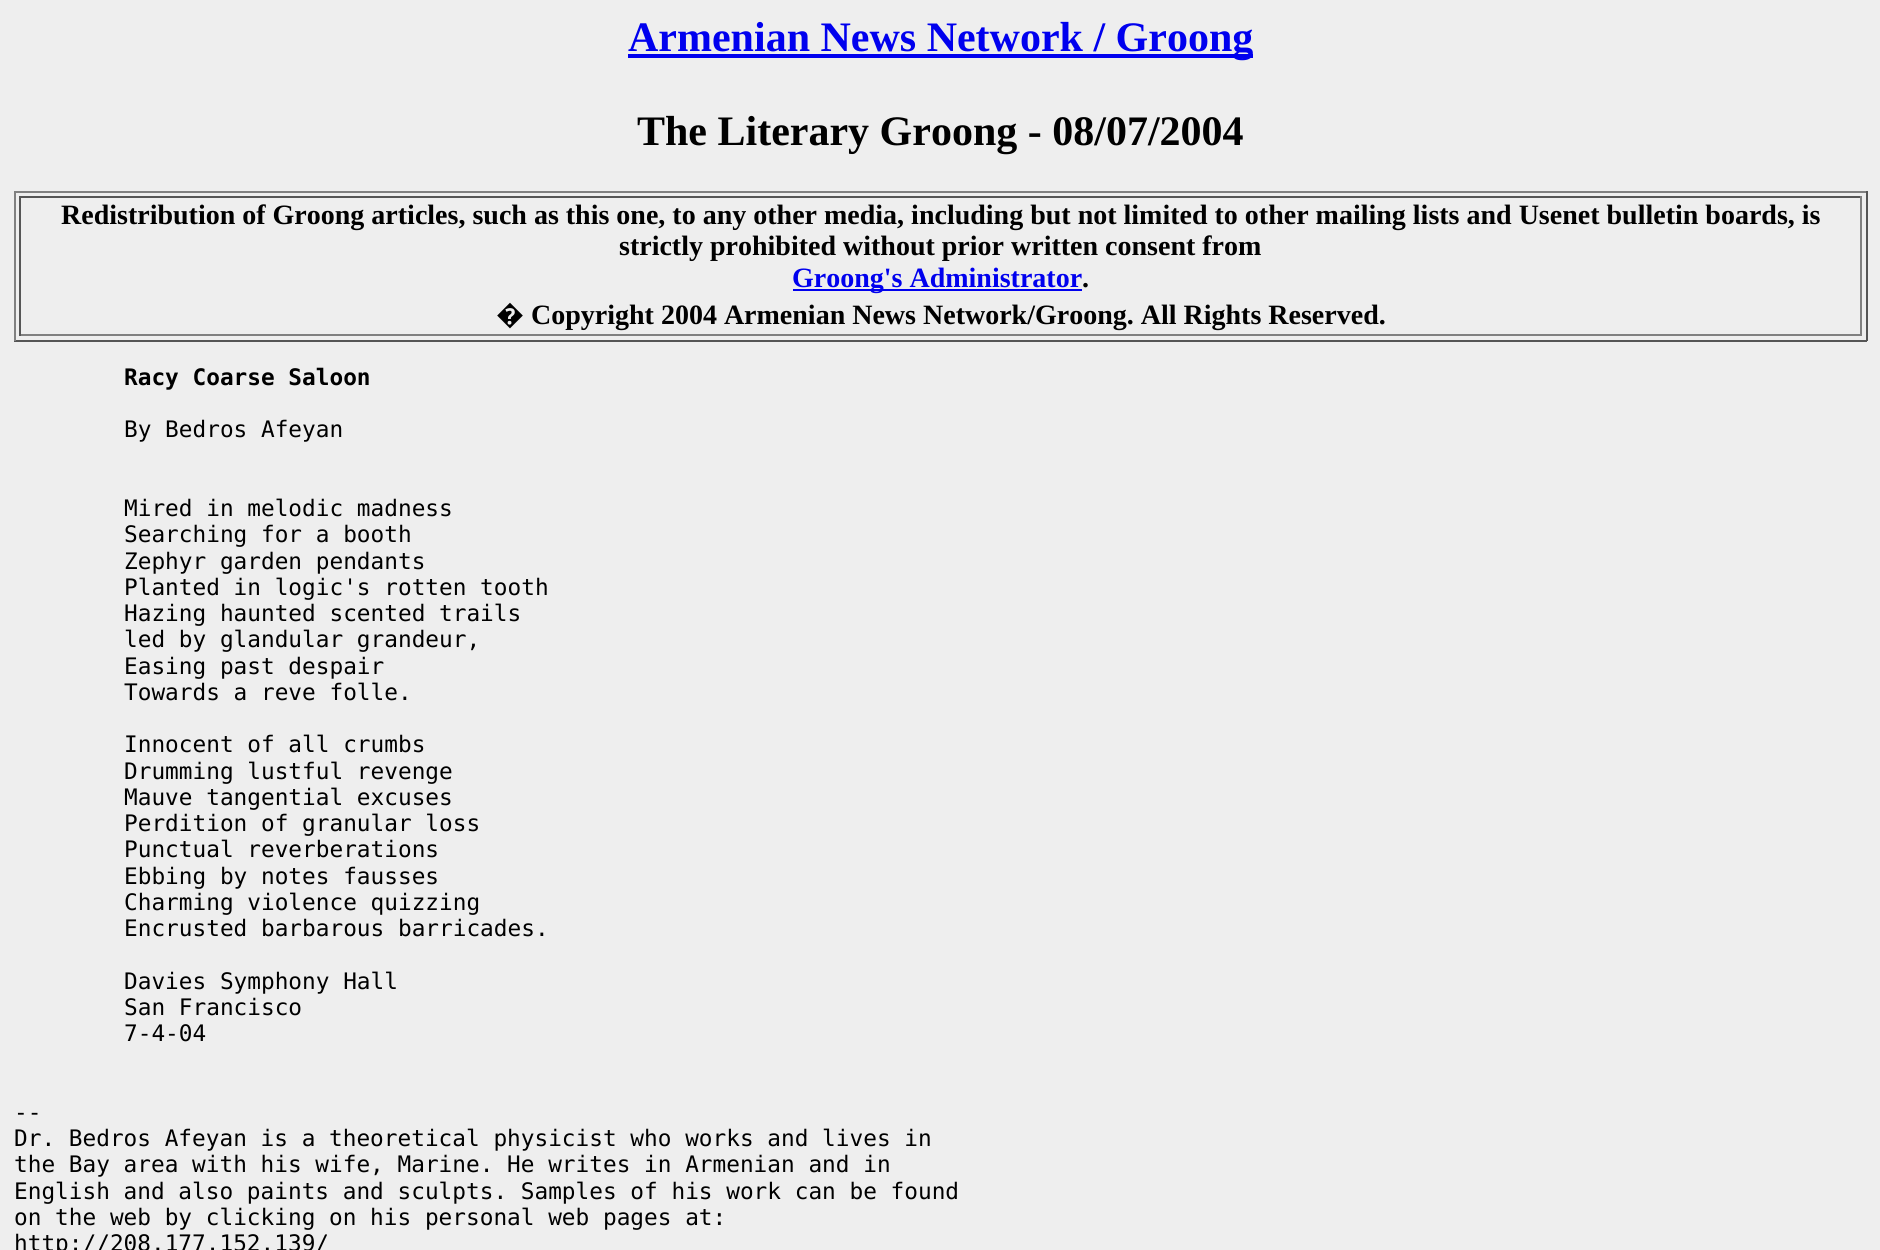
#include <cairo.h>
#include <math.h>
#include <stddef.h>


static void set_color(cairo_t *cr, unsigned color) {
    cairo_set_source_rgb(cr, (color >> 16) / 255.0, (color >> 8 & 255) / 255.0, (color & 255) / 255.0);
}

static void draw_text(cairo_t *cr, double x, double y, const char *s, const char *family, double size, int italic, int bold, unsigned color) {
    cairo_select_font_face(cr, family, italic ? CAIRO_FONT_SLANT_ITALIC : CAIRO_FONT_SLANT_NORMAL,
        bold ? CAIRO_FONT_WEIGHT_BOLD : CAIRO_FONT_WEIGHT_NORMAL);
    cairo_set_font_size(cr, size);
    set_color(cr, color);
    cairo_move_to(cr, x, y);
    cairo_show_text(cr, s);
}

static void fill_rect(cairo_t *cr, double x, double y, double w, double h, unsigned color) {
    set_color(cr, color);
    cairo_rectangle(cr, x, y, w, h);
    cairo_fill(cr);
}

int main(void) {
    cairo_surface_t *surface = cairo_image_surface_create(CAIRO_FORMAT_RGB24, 1880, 1250);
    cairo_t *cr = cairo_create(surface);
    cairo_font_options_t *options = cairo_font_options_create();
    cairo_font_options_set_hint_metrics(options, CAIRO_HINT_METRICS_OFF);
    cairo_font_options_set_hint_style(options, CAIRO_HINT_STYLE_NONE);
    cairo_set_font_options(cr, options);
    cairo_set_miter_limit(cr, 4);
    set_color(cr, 0xEEEEEE);
    cairo_paint(cr);
    fill_rect(cr, 628, 54, 625, 4, 0x0000EE);
    draw_text(cr, 628, 51, "Armenian News Network / Groong", "Liberation Serif", 42, 0, 1, 0x0000EE);
    draw_text(cr, 637, 145, "The Literary Groong - 08/07/2004", "Liberation Serif", 42, 0, 1, 0x000000);
    fill_rect(cr, 14, 191, 1853, 2, 0x808080);
    fill_rect(cr, 1866, 191, 2, 150, 0x555555);
    fill_rect(cr, 14, 340, 1853, 2, 0x555555);
    fill_rect(cr, 14, 191, 2, 150, 0x808080);
    fill_rect(cr, 19, 196, 1843, 2, 0x555555);
    fill_rect(cr, 1860, 196, 2, 140, 0x808080);
    fill_rect(cr, 19, 334, 1843, 2, 0x808080);
    fill_rect(cr, 19, 196, 2, 140, 0x555555);
    draw_text(cr, 61, 224, "Redistribution of Groong articles, such as this one, to any other media, including but not limited to other mailing lists and Usenet bulletin boards, is", "Liberation Serif", 28, 0, 1, 0x000000);
    draw_text(cr, 619, 255, "strictly prohibited without prior written consent from", "Liberation Serif", 28, 0, 1, 0x000000);
    fill_rect(cr, 793, 289, 289, 2, 0x0000EE);
    draw_text(cr, 792, 287, "Groong's Administrator", "Liberation Serif", 28, 0, 1, 0x0000EE);
    draw_text(cr, 1082, 287, ".", "Liberation Serif", 28, 0, 1, 0x000000);
    draw_text(cr, 496, 324, "�", "Noto Sans", 28, 0, 1, 0x000000);
    draw_text(cr, 531, 324, "Copyright 2004 Armenian News Network/Groong. All Rights Reserved.", "Liberation Serif", 28, 0, 1, 0x000000);
    draw_text(cr, 124, 385, "Racy Coarse Saloon", "DejaVu Sans Mono", 22.75, 0, 1, 0x000000);
    draw_text(cr, 124, 437, "By Bedros Afeyan", "DejaVu Sans Mono", 22.75, 0, 0, 0x000000);
    draw_text(cr, 124, 516, "Mired in melodic madness", "DejaVu Sans Mono", 22.75, 0, 0, 0x000000);
    draw_text(cr, 124, 542, "Searching for a booth", "DejaVu Sans Mono", 22.75, 0, 0, 0x000000);
    draw_text(cr, 124, 569, "Zephyr garden pendants", "DejaVu Sans Mono", 22.75, 0, 0, 0x000000);
    draw_text(cr, 124, 595, "Planted in logic's rotten tooth", "DejaVu Sans Mono", 22.75, 0, 0, 0x000000);
    draw_text(cr, 124, 621, "Hazing haunted scented trails", "DejaVu Sans Mono", 22.75, 0, 0, 0x000000);
    draw_text(cr, 124, 647, "led by glandular grandeur,", "DejaVu Sans Mono", 22.75, 0, 0, 0x000000);
    draw_text(cr, 124, 674, "Easing past despair", "DejaVu Sans Mono", 22.75, 0, 0, 0x000000);
    draw_text(cr, 124, 700, "Towards a reve folle.", "DejaVu Sans Mono", 22.75, 0, 0, 0x000000);
    draw_text(cr, 124, 752, "Innocent of all crumbs", "DejaVu Sans Mono", 22.75, 0, 0, 0x000000);
    draw_text(cr, 124, 779, "Drumming lustful revenge", "DejaVu Sans Mono", 22.75, 0, 0, 0x000000);
    draw_text(cr, 124, 805, "Mauve tangential excuses", "DejaVu Sans Mono", 22.75, 0, 0, 0x000000);
    draw_text(cr, 124, 831, "Perdition of granular loss", "DejaVu Sans Mono", 22.75, 0, 0, 0x000000);
    draw_text(cr, 124, 857, "Punctual reverberations", "DejaVu Sans Mono", 22.75, 0, 0, 0x000000);
    draw_text(cr, 124, 884, "Ebbing by notes fausses", "DejaVu Sans Mono", 22.75, 0, 0, 0x000000);
    draw_text(cr, 124, 910, "Charming violence quizzing", "DejaVu Sans Mono", 22.75, 0, 0, 0x000000);
    draw_text(cr, 124, 936, "Encrusted barbarous barricades.", "DejaVu Sans Mono", 22.75, 0, 0, 0x000000);
    draw_text(cr, 124, 989, "Davies Symphony Hall", "DejaVu Sans Mono", 22.75, 0, 0, 0x000000);
    draw_text(cr, 124, 1015, "San Francisco", "DejaVu Sans Mono", 22.75, 0, 0, 0x000000);
    draw_text(cr, 124, 1041, "7-4-04", "DejaVu Sans Mono", 22.75, 0, 0, 0x000000);
    draw_text(cr, 14, 1120, "--", "DejaVu Sans Mono", 22.75, 0, 0, 0x000000);
    draw_text(cr, 14, 1146, "Dr. Bedros Afeyan is a theoretical physicist who works and lives in", "DejaVu Sans Mono", 22.75, 0, 0, 0x000000);
    draw_text(cr, 14, 1172, "the Bay area with his wife, Marine. He writes in Armenian and in", "DejaVu Sans Mono", 22.75, 0, 0, 0x000000);
    draw_text(cr, 14, 1199, "English and also paints and sculpts. Samples of his work can be found", "DejaVu Sans Mono", 22.75, 0, 0, 0x000000);
    draw_text(cr, 14, 1225, "on the web by clicking on his personal web pages at:", "DejaVu Sans Mono", 22.75, 0, 0, 0x000000);
    draw_text(cr, 14, 1251, "http://208.177.152.139/", "DejaVu Sans Mono", 22.75, 0, 0, 0x000000);
    cairo_surface_write_to_png(surface, "output.png");
    cairo_font_options_destroy(options);
    cairo_destroy(cr);
    cairo_surface_destroy(surface);
    return 0;
}
